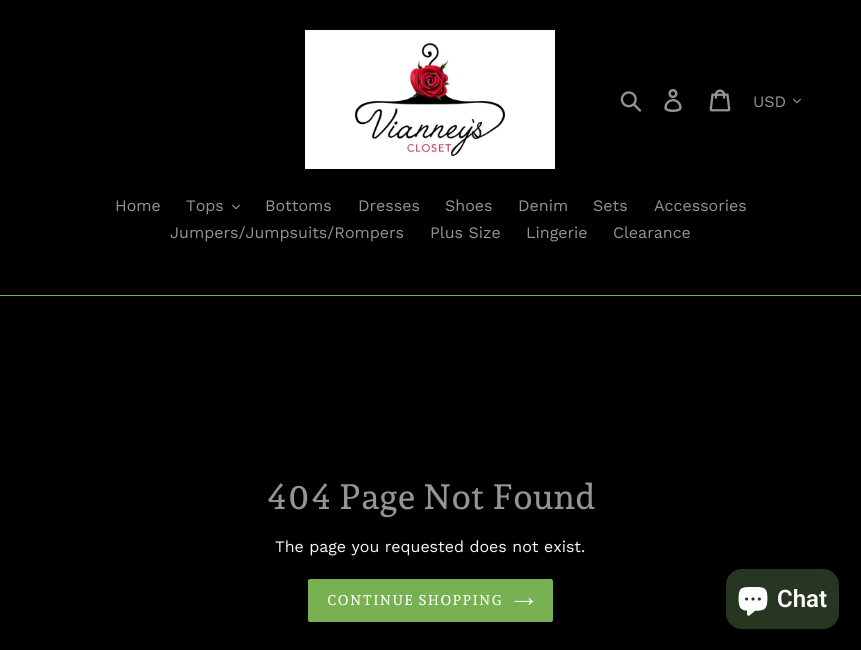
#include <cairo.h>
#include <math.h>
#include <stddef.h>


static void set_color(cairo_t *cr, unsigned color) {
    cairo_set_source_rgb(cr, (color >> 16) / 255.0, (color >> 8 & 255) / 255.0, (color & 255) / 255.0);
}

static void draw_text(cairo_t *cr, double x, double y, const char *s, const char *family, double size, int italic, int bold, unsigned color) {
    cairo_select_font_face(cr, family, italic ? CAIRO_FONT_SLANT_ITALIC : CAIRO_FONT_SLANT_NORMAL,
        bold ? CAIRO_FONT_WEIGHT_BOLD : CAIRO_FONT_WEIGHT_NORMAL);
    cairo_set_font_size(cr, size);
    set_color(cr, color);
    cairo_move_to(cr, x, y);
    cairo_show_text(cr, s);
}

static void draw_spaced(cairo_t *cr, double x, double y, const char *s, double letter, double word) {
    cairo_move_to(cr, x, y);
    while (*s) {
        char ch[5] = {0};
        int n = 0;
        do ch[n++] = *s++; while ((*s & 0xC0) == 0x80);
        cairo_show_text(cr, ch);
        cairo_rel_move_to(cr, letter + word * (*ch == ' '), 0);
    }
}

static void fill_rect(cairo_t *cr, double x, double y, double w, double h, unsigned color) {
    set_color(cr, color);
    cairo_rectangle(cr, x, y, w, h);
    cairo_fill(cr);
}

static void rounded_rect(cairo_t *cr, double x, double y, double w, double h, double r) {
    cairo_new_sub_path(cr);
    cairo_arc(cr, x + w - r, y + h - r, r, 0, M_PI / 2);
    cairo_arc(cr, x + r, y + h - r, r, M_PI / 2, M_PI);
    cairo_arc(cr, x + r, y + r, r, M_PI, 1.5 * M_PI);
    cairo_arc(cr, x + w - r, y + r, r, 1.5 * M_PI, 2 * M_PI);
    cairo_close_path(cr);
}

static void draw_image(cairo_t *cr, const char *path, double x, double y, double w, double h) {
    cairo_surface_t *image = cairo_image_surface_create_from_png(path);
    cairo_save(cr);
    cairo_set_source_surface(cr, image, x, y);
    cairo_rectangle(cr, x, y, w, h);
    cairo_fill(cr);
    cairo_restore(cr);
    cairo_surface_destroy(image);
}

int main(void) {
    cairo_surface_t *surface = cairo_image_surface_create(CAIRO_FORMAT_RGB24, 861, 650);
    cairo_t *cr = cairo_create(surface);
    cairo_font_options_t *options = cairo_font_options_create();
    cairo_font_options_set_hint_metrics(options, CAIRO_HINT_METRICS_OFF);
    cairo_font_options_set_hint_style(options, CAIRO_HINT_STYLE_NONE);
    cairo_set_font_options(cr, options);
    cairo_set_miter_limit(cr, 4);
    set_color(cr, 0x000000);
    cairo_paint(cr);
    draw_image(cr, "assets/img1.png", 305, 30, 250, 139);
    draw_image(cr, "assets/img2.png", 620, 91, 22, 21);
    draw_image(cr, "assets/img3.png", 664, 89, 18, 23);
    draw_image(cr, "assets/img4.png", 709, 89, 22, 23);
    draw_text(cr, 753, 107, "USD", "Work Sans", 16, 0, 0, 0x949494);
    draw_image(cr, "assets/img5.png", 793, 98, 8, 6);
    fill_rect(cr, 0, 295, 861, 1, 0x78B152);
    draw_text(cr, 115, 211, "Home", "Work Sans", 16, 0, 0, 0x949494);
    draw_text(cr, 186, 211, "Tops", "Work Sans", 16, 0, 0, 0x949494);
    draw_image(cr, "assets/img5.png", 232, 204, 8, 6);
    draw_text(cr, 265, 211, "Bottoms", "Work Sans", 16, 0, 0, 0x949494);
    draw_text(cr, 358, 211, "Dresses", "Work Sans", 16, 0, 0, 0x949494);
    draw_text(cr, 445, 211, "Shoes", "Work Sans", 16, 0, 0, 0x949494);
    draw_text(cr, 518, 211, "Denim", "Work Sans", 16, 0, 0, 0x949494);
    draw_text(cr, 593, 211, "Sets", "Work Sans", 16, 0, 0, 0x949494);
    draw_text(cr, 654, 211, "Accessories", "Work Sans", 16, 0, 0, 0x949494);
    draw_text(cr, 170, 238, "Jumpers/Jumpsuits/Rompers", "Work Sans", 16, 0, 0, 0x949494);
    draw_text(cr, 430, 238, "Plus Size", "Work Sans", 16, 0, 0, 0x949494);
    draw_text(cr, 526, 238, "Lingerie", "Work Sans", 16, 0, 0, 0x949494);
    draw_text(cr, 613, 238, "Clearance", "Work Sans", 16, 0, 0, 0x949494);
    draw_text(cr, 266, 509, "404 Page Not Found", "Andada Pro Medium", 35, 0, 0, 0x949494);
    draw_text(cr, 275, 552, "The page you requested does not exist.", "Work Sans", 16, 0, 0, 0xF4FAFF);
    set_color(cr, 0x78B152);
    rounded_rect(cr, 308, 579, 245, 43, 2);
    cairo_fill(cr);
    cairo_select_font_face(cr, "Andada Pro Medium", CAIRO_FONT_SLANT_NORMAL, CAIRO_FONT_WEIGHT_NORMAL);
    cairo_set_font_size(cr, 14);
    set_color(cr, 0xFFFFFF);
    draw_spaced(cr, 327, 605, "CONTINUE SHOPPING", 1.1, 0);
    draw_image(cr, "assets/img6.png", 514, 597, 20, 8);
    set_color(cr, 0x263620);
    rounded_rect(cr, 726, 569, 113, 60, 16);
    cairo_fill(cr);
    draw_image(cr, "assets/img7.png", 738, 587, 30, 29);
    draw_text(cr, 777, 607, "Chat", "Roboto SemiBold", 24, 0, 0, 0xFFFFFF);
    cairo_surface_write_to_png(surface, "output.png");
    cairo_font_options_destroy(options);
    cairo_destroy(cr);
    cairo_surface_destroy(surface);
    return 0;
}
